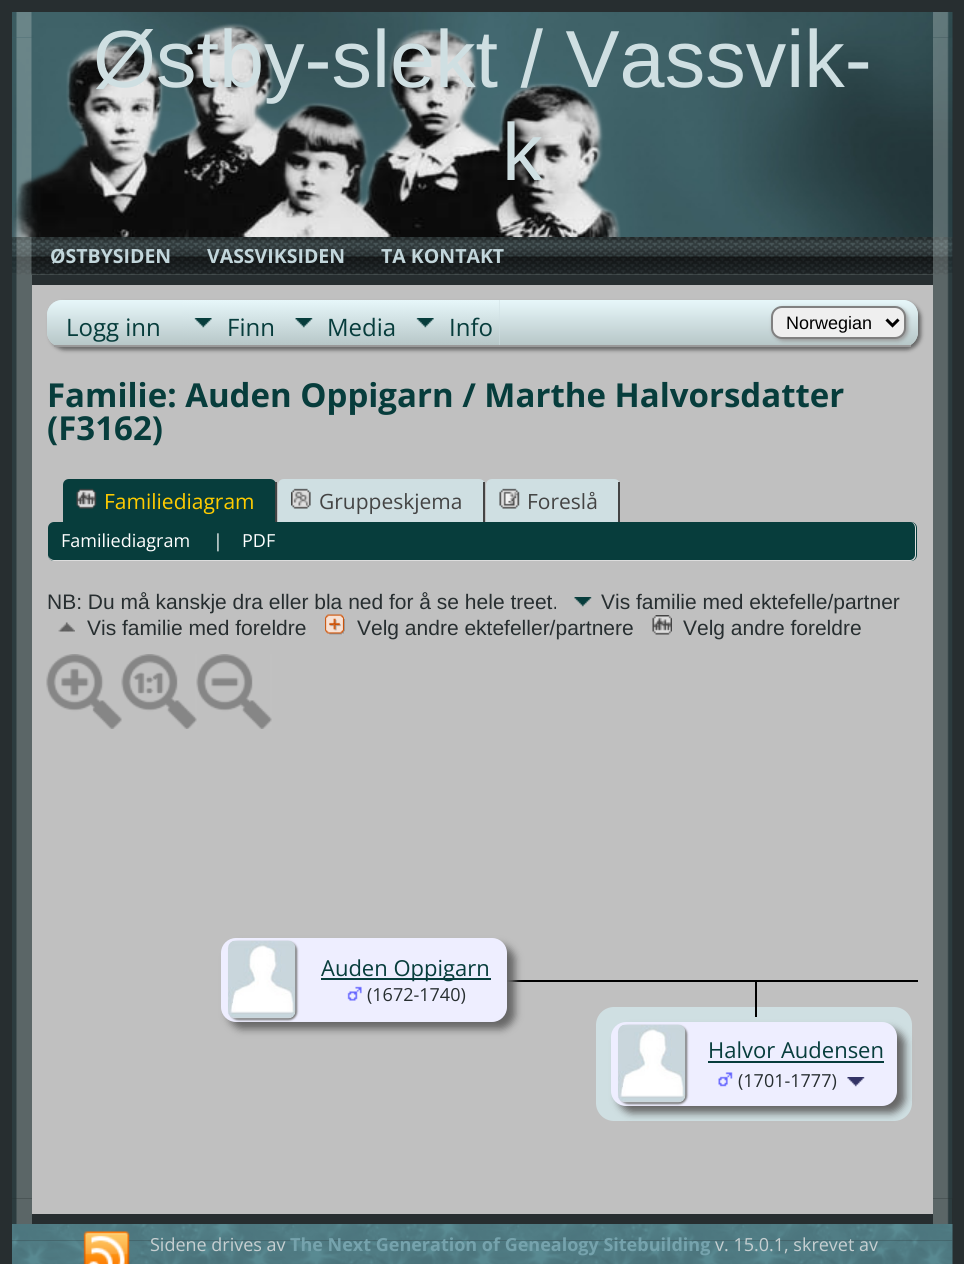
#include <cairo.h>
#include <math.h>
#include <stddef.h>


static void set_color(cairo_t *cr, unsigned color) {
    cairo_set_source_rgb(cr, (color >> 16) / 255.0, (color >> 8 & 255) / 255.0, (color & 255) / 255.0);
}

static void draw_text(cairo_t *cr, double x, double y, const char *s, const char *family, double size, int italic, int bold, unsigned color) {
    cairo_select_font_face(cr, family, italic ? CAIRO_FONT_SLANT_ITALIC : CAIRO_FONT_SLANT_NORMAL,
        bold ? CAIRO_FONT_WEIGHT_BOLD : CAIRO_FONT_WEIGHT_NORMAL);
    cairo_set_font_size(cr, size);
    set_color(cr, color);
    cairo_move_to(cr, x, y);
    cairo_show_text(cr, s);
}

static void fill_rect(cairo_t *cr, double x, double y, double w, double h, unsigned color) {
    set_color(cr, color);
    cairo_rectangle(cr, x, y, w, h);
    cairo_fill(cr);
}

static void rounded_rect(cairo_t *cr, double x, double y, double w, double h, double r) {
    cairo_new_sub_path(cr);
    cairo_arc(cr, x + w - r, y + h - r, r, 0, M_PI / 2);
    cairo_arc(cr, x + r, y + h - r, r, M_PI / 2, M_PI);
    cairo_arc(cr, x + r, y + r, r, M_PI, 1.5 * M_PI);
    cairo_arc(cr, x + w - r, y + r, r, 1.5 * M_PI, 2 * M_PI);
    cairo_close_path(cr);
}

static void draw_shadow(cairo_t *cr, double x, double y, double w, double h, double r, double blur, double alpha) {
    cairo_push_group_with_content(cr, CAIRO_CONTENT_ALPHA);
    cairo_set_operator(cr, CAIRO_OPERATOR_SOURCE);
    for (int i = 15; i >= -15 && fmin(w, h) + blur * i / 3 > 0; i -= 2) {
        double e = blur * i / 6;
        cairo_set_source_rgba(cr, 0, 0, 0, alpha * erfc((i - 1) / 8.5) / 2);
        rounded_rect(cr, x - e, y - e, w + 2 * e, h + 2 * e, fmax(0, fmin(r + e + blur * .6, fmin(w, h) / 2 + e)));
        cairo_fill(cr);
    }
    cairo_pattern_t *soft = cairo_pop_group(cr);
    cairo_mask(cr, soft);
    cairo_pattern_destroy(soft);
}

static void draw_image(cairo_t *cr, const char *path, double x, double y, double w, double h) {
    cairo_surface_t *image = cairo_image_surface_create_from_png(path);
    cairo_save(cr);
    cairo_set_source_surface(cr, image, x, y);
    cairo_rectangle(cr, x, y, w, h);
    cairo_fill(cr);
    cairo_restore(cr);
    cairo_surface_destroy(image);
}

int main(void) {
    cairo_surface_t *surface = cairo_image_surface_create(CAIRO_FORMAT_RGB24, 964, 1264);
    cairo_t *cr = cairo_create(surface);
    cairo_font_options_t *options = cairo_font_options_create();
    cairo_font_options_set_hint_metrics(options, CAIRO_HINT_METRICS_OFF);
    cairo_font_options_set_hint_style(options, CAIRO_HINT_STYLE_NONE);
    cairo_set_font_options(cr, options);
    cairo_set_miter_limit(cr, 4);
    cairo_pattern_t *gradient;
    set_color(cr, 0x272E30);
    cairo_paint(cr);
    draw_image(cr, "assets/img1.png", 12, 12, 941, 225);
    draw_image(cr, "assets/img2.png", 12, 12, 20, 26);
    draw_image(cr, "assets/img3.png", 933, 12, 16, 26);
    draw_image(cr, "assets/img27.png", 12, 1198, 20, 26);
    draw_image(cr, "assets/img29.png", 12, 237, 941, 38);
    draw_image(cr, "assets/img4.png", 12, 37, 26, 1162);
    draw_image(cr, "assets/img28.png", 933, 1198, 19, 26);
    draw_image(cr, "assets/img26.png", 927, 37, 26, 1162);
    draw_image(cr, "assets/img5.png", 31, 12, 902, 225);
    draw_image(cr, "assets/img6.png", 11, 23, 610, 214);
    draw_text(cr, 93, 87, "Østby-slekt / Vassvik-", "Liberation Sans", 81, 0, 0, 0xCFDFE2);
    draw_text(cr, 502, 180, "k", "Liberation Sans", 81, 0, 0, 0xCFDFE2);
    cairo_set_source_rgba(cr, 0.667, 0.725, 0.725, 0.4);
    cairo_rectangle(cr, 37, 274, 890, 1);
    cairo_fill(cr);
    draw_image(cr, "assets/img7.png", 31, 237, 902, 38);
    draw_text(cr, 50, 263, "ØSTBYSIDEN", "Open Sans", 19.5, 0, 1, 0xC2D6DB);
    draw_text(cr, 207, 263, "VASSVIKSIDEN", "Open Sans", 19.5, 0, 1, 0xC2D6DB);
    draw_text(cr, 381, 263, "TA KONTAKT", "Open Sans", 19.5, 0, 1, 0xC2D6DB);
    fill_rect(cr, 32, 285, 901, 929, 0xC0C0C0);
    fill_rect(cr, 32, 275, 901, 10, 0x272E30);
    set_color(cr, 0x666666);
    draw_shadow(cr, 50, 303, 871, 47, 15, 2, 1);
    set_color(cr, 0xCFDFE2);
    rounded_rect(cr, 47, 300, 871, 47, 15);
    cairo_fill(cr);
    cairo_save(cr);
    rounded_rect(cr, 47, 300, 871, 47, 15);
    cairo_clip(cr);
    gradient = cairo_pattern_create_linear(482, 300, 482, 345);
    cairo_pattern_add_color_stop_rgba(gradient, 0, 0.906, 0.969, 0.98, 1);
    cairo_pattern_add_color_stop_rgba(gradient, 1, 0.718, 0.78, 0.784, 1);
    cairo_set_source(cr, gradient);
    cairo_pattern_destroy(gradient);
    cairo_new_path(cr);
    cairo_move_to(cr, 62, 300);
    cairo_line_to(cr, 903, 300);
    cairo_curve_to(cr, 911.5, 300, 918, 306.5, 918, 315);
    cairo_line_to(cr, 918, 345);
    cairo_line_to(cr, 47, 345);
    cairo_line_to(cr, 47, 315);
    cairo_curve_to(cr, 47, 306.5, 53.5, 300, 62, 300);
    cairo_close_path(cr);
    cairo_fill(cr);
    cairo_restore(cr);
    fill_rect(cr, 54, 345, 857, 2, 0x999999);
    draw_text(cr, 66, 336, "Logg inn", "Open Sans", 24, 0, 0, 0x073D3C);
    draw_image(cr, "assets/img8.png", 182, 300, 100, 45);
    draw_text(cr, 227, 336, "Finn", "Open Sans", 24, 0, 0, 0x073D3C);
    draw_image(cr, "assets/img9.png", 282, 300, 122, 45);
    draw_text(cr, 327, 336, "Media", "Open Sans", 24, 0, 0, 0x073D3C);
    fill_rect(cr, 499, 300, 1, 45, 0xCFDFE2);
    draw_image(cr, "assets/img10.png", 403, 300, 97, 45);
    draw_text(cr, 449, 336, "Info", "Open Sans", 24, 0, 0, 0x073D3C);
    set_color(cr, 0x999999);
    draw_shadow(cr, 773, 308, 135, 33, 11, 2, 1);
    set_color(cr, 0xEFEFEF);
    rounded_rect(cr, 772, 307, 133, 31, 10);
    cairo_fill_preserve(cr);
    set_color(cr, 0x808080);
    cairo_stroke(cr);
    cairo_new_path(cr);
    cairo_move_to(cr, 886.5, 319.5);
    cairo_line_to(cr, 892.5, 325.5);
    cairo_line_to(cr, 898.5, 319.5);
    set_color(cr, 0x000000);
    cairo_set_line_width(cr, 3);
    cairo_stroke(cr);
    draw_text(cr, 786, 329, "Norwegian", "Liberation Sans", 18, 0, 0, 0x000000);
    draw_text(cr, 47, 407, "Familie: Auden Oppigarn / Marthe Halvorsdatter", "Open Sans", 33, 0, 1, 0x073D3C);
    draw_text(cr, 47, 440, "(F3162)", "Open Sans", 33, 0, 1, 0x073D3C);
    cairo_new_path(cr);
    cairo_move_to(cr, 69, 479);
    cairo_line_to(cr, 270, 479);
    cairo_curve_to(cr, 273.5, 479, 276, 481.5, 276, 485);
    cairo_line_to(cr, 276, 522);
    cairo_line_to(cr, 63, 522);
    cairo_line_to(cr, 63, 485);
    cairo_curve_to(cr, 63, 481.5, 65.5, 479, 69, 479);
    cairo_close_path(cr);
    cairo_fill(cr);
    fill_rect(cr, 275, 482, 2, 40, 0x444444);
    draw_image(cr, "assets/img11.png", 76, 488, 21, 21);
    draw_text(cr, 104, 509, "Familiediagram", "Open Sans", 21, 0, 0, 0xFFCC00);
    set_color(cr, 0xCFDFE2);
    cairo_new_path(cr);
    cairo_move_to(cr, 284, 479);
    cairo_line_to(cr, 479, 479);
    cairo_curve_to(cr, 482.5, 479, 485, 481.5, 485, 485);
    cairo_line_to(cr, 485, 522);
    cairo_line_to(cr, 278, 522);
    cairo_line_to(cr, 278, 485);
    cairo_curve_to(cr, 278, 481.5, 280.5, 479, 284, 479);
    cairo_close_path(cr);
    cairo_fill(cr);
    fill_rect(cr, 483, 482, 2, 40, 0x444444);
    draw_image(cr, "assets/img12.png", 291, 488, 20, 21);
    draw_text(cr, 319, 509, "Gruppeskjema", "Open Sans", 21, 0, 0, 0x444444);
    set_color(cr, 0xCFDFE2);
    cairo_new_path(cr);
    cairo_move_to(cr, 492, 479);
    cairo_line_to(cr, 614, 479);
    cairo_curve_to(cr, 617.5, 479, 620, 481.5, 620, 485);
    cairo_line_to(cr, 620, 522);
    cairo_line_to(cr, 486, 522);
    cairo_line_to(cr, 486, 485);
    cairo_curve_to(cr, 486, 481.5, 488.5, 479, 492, 479);
    cairo_close_path(cr);
    cairo_fill(cr);
    fill_rect(cr, 618, 482, 2, 40, 0x444444);
    draw_image(cr, "assets/img13.png", 499, 488, 21, 21);
    draw_text(cr, 527, 509, "Foreslå", "Open Sans", 21, 0, 0, 0x444444);
    set_color(cr, 0x073D3C);
    rounded_rect(cr, 48, 522, 869, 39, 6);
    cairo_fill(cr);
    set_color(cr, 0xDDDDDD);
    cairo_set_fill_rule(cr, CAIRO_FILL_RULE_EVEN_ODD);
    cairo_new_path(cr);
    cairo_move_to(cr, 54, 522);
    cairo_line_to(cr, 910, 522);
    cairo_curve_to(cr, 914, 522, 916, 525, 916, 528);
    cairo_line_to(cr, 916, 555);
    cairo_curve_to(cr, 916, 558, 914, 561, 910, 561);
    cairo_line_to(cr, 54, 561);
    cairo_curve_to(cr, 51, 561, 48, 558, 48, 555);
    cairo_line_to(cr, 48, 528);
    cairo_curve_to(cr, 48, 525, 51, 522, 54, 522);
    cairo_close_path(cr);
    cairo_move_to(cr, 54, 522);
    cairo_line_to(cr, 910, 522);
    cairo_curve_to(cr, 913, 522, 915, 525, 915, 528);
    cairo_line_to(cr, 915, 555);
    cairo_curve_to(cr, 915, 557, 913, 560, 910, 560);
    cairo_line_to(cr, 54, 560);
    cairo_curve_to(cr, 51, 560, 48, 557, 48, 555);
    cairo_line_to(cr, 48, 528);
    cairo_curve_to(cr, 48, 525, 51, 522, 54, 522);
    cairo_close_path(cr);
    cairo_fill(cr);
    draw_text(cr, 61, 547, "Familiediagram", "Open Sans", 18, 0, 0, 0xFFFFFF);
    draw_text(cr, 213, 547, "|", "Open Sans", 18, 0, 0, 0xFFFFFF);
    draw_text(cr, 242, 547, "PDF", "Open Sans", 18, 0, 0, 0xFFFFFF);
    draw_text(cr, 47, 609, "NB: Du må kanskje dra eller bla ned for å se hele treet.", "Liberation Sans", 21, 0, 0, 0x272E30);
    draw_image(cr, "assets/img14.png", 574, 597, 18, 10);
    draw_text(cr, 601, 609, "Vis familie med ektefelle/partner", "Liberation Sans", 21, 0, 0, 0x272E30);
    draw_image(cr, "assets/img15.png", 58, 622, 17, 10);
    draw_text(cr, 87, 635, "Vis familie med foreldre", "Liberation Sans", 21, 0, 0, 0x272E30);
    draw_image(cr, "assets/img16.png", 325, 614, 20, 21);
    draw_text(cr, 357, 635, "Velg andre ektefeller/partnere", "Liberation Sans", 21, 0, 0, 0x272E30);
    draw_image(cr, "assets/img17.png", 652, 615, 20, 20);
    draw_text(cr, 683, 635, "Velg andre foreldre", "Liberation Sans", 21, 0, 0, 0x272E30);
    draw_image(cr, "assets/img18.png", 46, 654, 76, 75);
    draw_image(cr, "assets/img19.png", 121, 654, 76, 75);
    draw_image(cr, "assets/img20.png", 196, 654, 76, 75);
    fill_rect(cr, 507, 980, 411, 2, 0x000000);
    set_color(cr, 0x666666);
    draw_shadow(cr, 228, 945, 287, 84, 15, 4, 1);
    set_color(cr, 0xEEEEFF);
    rounded_rect(cr, 221, 938, 286, 84, 15);
    cairo_fill(cr);
    set_color(cr, 0x777777);
    draw_shadow(cr, 230, 942, 67, 78, 8, 1, 1);
    draw_image(cr, "assets/img21.png", 228, 940, 68, 79);
    fill_rect(cr, 321, 978, 170, 2, 0x073D3C);
    draw_text(cr, 321, 976, "Auden Oppigarn", "Open Sans", 22, 0, 0, 0x073D3C);
    draw_image(cr, "assets/img22.png", 347, 986, 15, 15);
    draw_text(cr, 367, 1001, "(1672-1740)", "Open Sans", 18, 0, 0, 0x272E30);
    set_color(cr, 0xCFDFE2);
    rounded_rect(cr, 596, 1007, 316, 114, 18);
    cairo_fill(cr);
    fill_rect(cr, 755, 980, 2, 37, 0x000000);
    set_color(cr, 0x666666);
    draw_shadow(cr, 618, 1029, 287, 84, 15, 4, 1);
    set_color(cr, 0xEEEEFF);
    rounded_rect(cr, 611, 1022, 286, 84, 15);
    cairo_fill(cr);
    set_color(cr, 0x777777);
    draw_shadow(cr, 620, 1026, 67, 78, 8, 1, 1);
    draw_image(cr, "assets/img23.png", 618, 1024, 68, 79);
    draw_text(cr, 708, 1058, "Halvor Audensen", "Open Sans", 22, 0, 0, 0x073D3C);
    fill_rect(cr, 708, 1061, 176, 2, 0x073D3C);
    draw_image(cr, "assets/img24.png", 718, 1072, 15, 15);
    draw_text(cr, 738, 1087, "(1701-1777)", "Open Sans", 18, 0, 0, 0x272E30);
    draw_image(cr, "assets/img25.png", 847, 1077, 18, 10);
    draw_image(cr, "assets/img30.png", 12, 1224, 941, 17);
    draw_image(cr, "assets/img32.png", 12, 1240, 941, 24);
    draw_image(cr, "assets/img31.png", 83, 1231, 47, 33);
    draw_text(cr, 150, 1251, "Sidene drives av", "Open Sans", 18, 0, 0, 0xC7CFD1);
    draw_text(cr, 290, 1251, "The Next Generation of Genealogy Sitebuilding", "Open Sans", 18, 0, 1, 0x76A3AD);
    draw_text(cr, 715, 1251, "v. 15.0.1, skrevet av", "Open Sans", 18, 0, 0, 0xC7CFD1);
    cairo_surface_write_to_png(surface, "output.png");
    cairo_font_options_destroy(options);
    cairo_destroy(cr);
    cairo_surface_destroy(surface);
    return 0;
}
